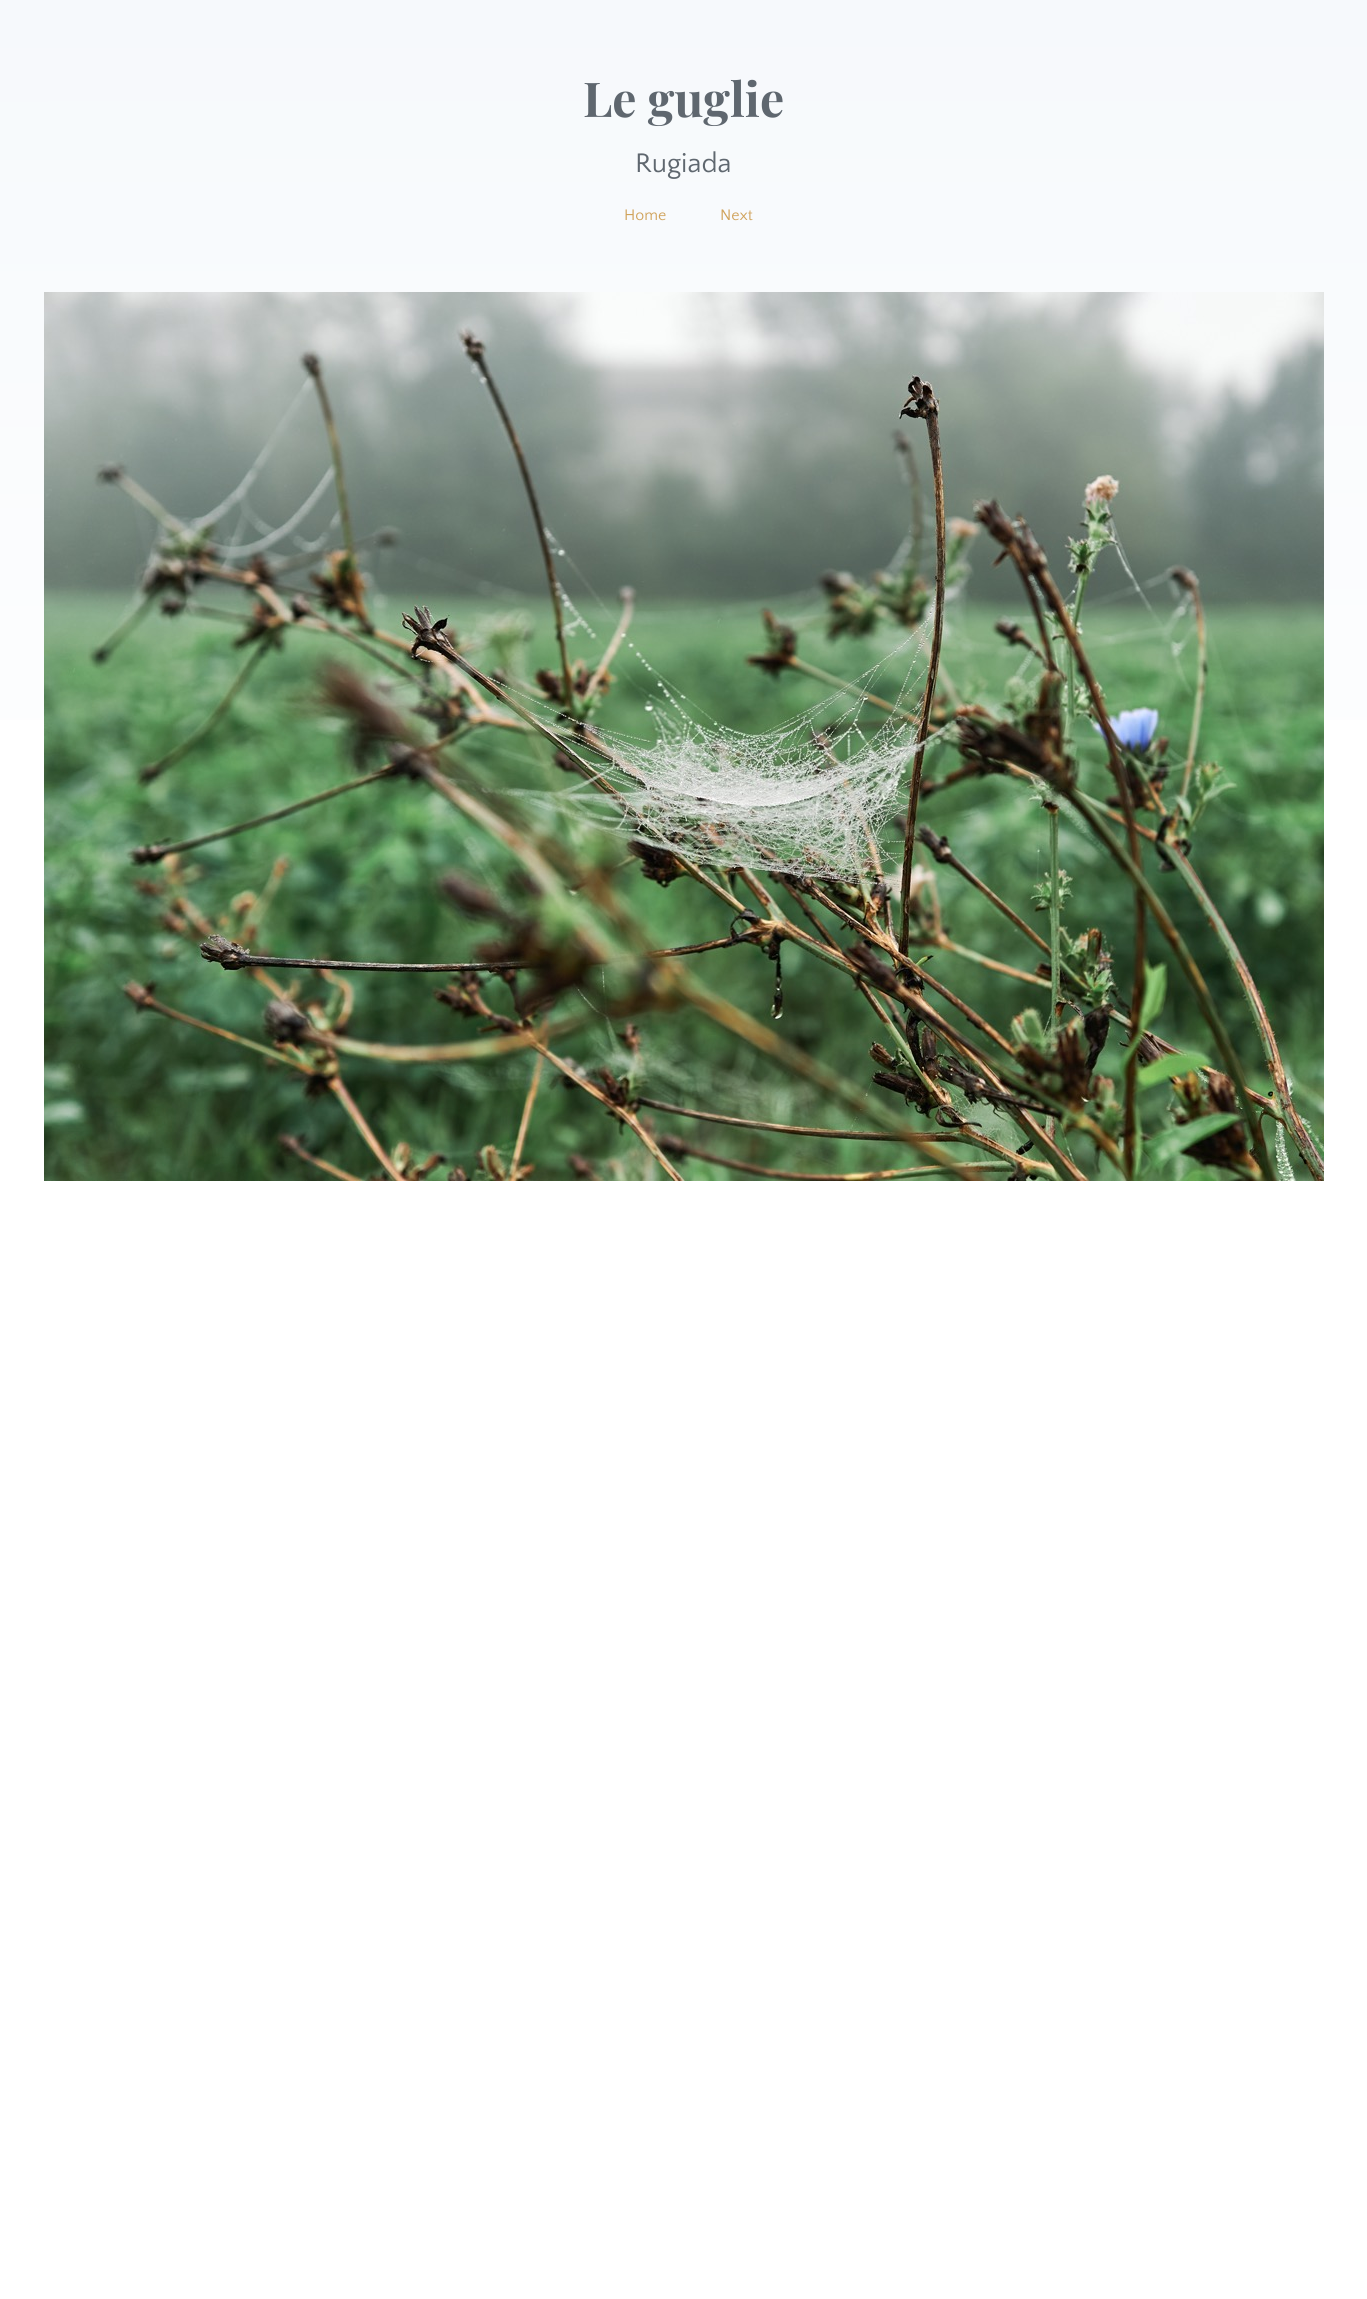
#include <cairo.h>
#include <math.h>
#include <stddef.h>


static void set_color(cairo_t *cr, unsigned color) {
    cairo_set_source_rgb(cr, (color >> 16) / 255.0, (color >> 8 & 255) / 255.0, (color & 255) / 255.0);
}

static void draw_text(cairo_t *cr, double x, double y, const char *s, const char *family, double size, int italic, int bold, unsigned color) {
    cairo_select_font_face(cr, family, italic ? CAIRO_FONT_SLANT_ITALIC : CAIRO_FONT_SLANT_NORMAL,
        bold ? CAIRO_FONT_WEIGHT_BOLD : CAIRO_FONT_WEIGHT_NORMAL);
    cairo_set_font_size(cr, size);
    set_color(cr, color);
    cairo_move_to(cr, x, y);
    cairo_show_text(cr, s);
}

static void draw_image(cairo_t *cr, const char *path, double x, double y, double w, double h) {
    cairo_surface_t *image = cairo_image_surface_create_from_png(path);
    cairo_save(cr);
    cairo_set_source_surface(cr, image, x, y);
    cairo_rectangle(cr, x, y, w, h);
    cairo_fill(cr);
    cairo_restore(cr);
    cairo_surface_destroy(image);
}

int main(void) {
    cairo_surface_t *surface = cairo_image_surface_create(CAIRO_FORMAT_RGB24, 1367, 2299);
    cairo_t *cr = cairo_create(surface);
    cairo_font_options_t *options = cairo_font_options_create();
    cairo_font_options_set_hint_metrics(options, CAIRO_HINT_METRICS_OFF);
    cairo_font_options_set_hint_style(options, CAIRO_HINT_STYLE_NONE);
    cairo_set_font_options(cr, options);
    cairo_set_miter_limit(cr, 4);
    cairo_pattern_t *gradient;
    set_color(cr, 0xFFFFFF);
    cairo_paint(cr);
    gradient = cairo_pattern_create_linear(683, 0, 684, 1245);
    cairo_pattern_add_color_stop_rgba(gradient, 0, 0.965, 0.976, 0.988, 1);
    cairo_pattern_add_color_stop_rgba(gradient, 0.8, 1, 1, 1, 1);
    cairo_set_source(cr, gradient);
    cairo_pattern_destroy(gradient);
    cairo_rectangle(cr, 0, 0, 1367, 720);
    cairo_fill(cr);
    draw_text(cr, 583, 117, "Le guglie", "Playfair Display", 48, 0, 1, 0x5F676F);
    draw_text(cr, 635, 172, "Rugiada", "Quattrocento Sans", 28, 0, 0, 0x5F676F);
    draw_text(cr, 624, 220, "Home", "Quattrocento Sans", 16, 0, 0, 0xD0A25A);
    draw_text(cr, 720, 220, "Next", "Quattrocento Sans", 16, 0, 0, 0xD0A25A);
    draw_image(cr, "assets/img1.png", 44, 292, 1280, 889);
    cairo_surface_write_to_png(surface, "output.png");
    cairo_font_options_destroy(options);
    cairo_destroy(cr);
    cairo_surface_destroy(surface);
    return 0;
}
